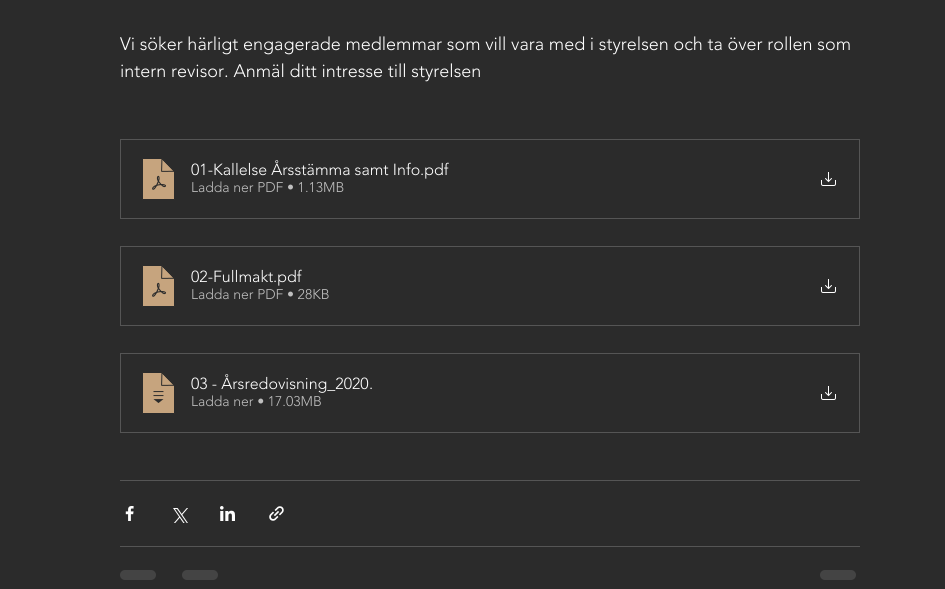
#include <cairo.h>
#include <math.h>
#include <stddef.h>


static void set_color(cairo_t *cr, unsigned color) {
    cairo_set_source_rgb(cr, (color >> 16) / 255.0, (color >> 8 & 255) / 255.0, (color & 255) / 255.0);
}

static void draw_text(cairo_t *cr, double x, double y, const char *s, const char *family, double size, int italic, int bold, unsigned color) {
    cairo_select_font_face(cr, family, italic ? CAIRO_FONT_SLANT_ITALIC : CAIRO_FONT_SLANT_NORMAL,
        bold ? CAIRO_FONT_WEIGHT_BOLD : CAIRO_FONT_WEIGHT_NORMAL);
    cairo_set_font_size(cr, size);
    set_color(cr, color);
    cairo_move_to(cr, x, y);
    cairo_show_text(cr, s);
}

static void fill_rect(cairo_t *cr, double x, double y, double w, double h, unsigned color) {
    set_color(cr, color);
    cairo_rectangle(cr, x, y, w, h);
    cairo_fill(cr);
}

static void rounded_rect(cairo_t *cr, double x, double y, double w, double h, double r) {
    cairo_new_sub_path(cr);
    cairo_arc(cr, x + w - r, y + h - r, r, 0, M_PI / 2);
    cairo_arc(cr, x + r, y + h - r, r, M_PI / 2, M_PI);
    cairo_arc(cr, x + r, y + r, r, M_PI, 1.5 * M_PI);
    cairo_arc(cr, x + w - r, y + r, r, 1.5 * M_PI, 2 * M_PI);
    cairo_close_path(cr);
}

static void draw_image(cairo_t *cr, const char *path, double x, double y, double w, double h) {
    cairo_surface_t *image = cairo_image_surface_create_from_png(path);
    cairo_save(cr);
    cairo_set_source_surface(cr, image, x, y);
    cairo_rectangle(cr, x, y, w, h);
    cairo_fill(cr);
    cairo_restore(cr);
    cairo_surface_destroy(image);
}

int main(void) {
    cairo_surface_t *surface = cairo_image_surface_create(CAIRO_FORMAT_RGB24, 945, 589);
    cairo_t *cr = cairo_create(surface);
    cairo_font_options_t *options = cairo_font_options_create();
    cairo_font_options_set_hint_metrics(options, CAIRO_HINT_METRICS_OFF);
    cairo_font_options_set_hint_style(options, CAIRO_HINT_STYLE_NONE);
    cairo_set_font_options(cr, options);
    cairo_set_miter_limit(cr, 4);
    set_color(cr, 0x2B2B2B);
    cairo_paint(cr);
    draw_text(cr, 120, 50, "Vi söker härligt engagerade medlemmar som vill vara med i styrelsen och ta över rollen som", "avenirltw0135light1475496 Light", 18, 0, 0, 0xFFFFFF);
    draw_text(cr, 120, 77, "intern revisor. Anmäl ditt intresse till styrelsen", "avenirltw0135light1475496 Light", 18, 0, 0, 0xFFFFFF);
    cairo_rectangle(cr, 120.5, 139.5, 739, 79);
    set_color(cr, 0x555555);
    cairo_set_line_width(cr, 1);
    cairo_stroke(cr);
    draw_image(cr, "assets/img1.png", 142, 158, 33, 42);
    draw_text(cr, 191, 175, "01-Kallelse Årsstämma samt Info", "avenirltw0135light1475496 Light", 16, 0, 0, 0xFFFFFF);
    draw_text(cr, 420, 175, ".pdf", "avenirltw0135light1475496 Light", 16, 0, 0, 0xFFFFFF);
    draw_text(cr, 191, 192, "Ladda ner PDF • 1.13MB", "avenirltw0135light1475496 Light", 14, 0, 0, 0xBFBFBF);
    draw_image(cr, "assets/img2.png", 821, 172, 15, 14);
    cairo_rectangle(cr, 120.5, 246.5, 739, 79);
    set_color(cr, 0x555555);
    cairo_stroke(cr);
    draw_image(cr, "assets/img1.png", 142, 265, 33, 42);
    draw_text(cr, 191, 282, "02-Fullmakt", "avenirltw0135light1475496 Light", 16, 0, 0, 0xFFFFFF);
    draw_text(cr, 273, 282, ".pdf", "avenirltw0135light1475496 Light", 16, 0, 0, 0xFFFFFF);
    draw_text(cr, 191, 299, "Ladda ner PDF • 28KB", "avenirltw0135light1475496 Light", 14, 0, 0, 0xBFBFBF);
    draw_image(cr, "assets/img2.png", 821, 279, 15, 14);
    cairo_rectangle(cr, 120.5, 353.5, 739, 79);
    set_color(cr, 0x555555);
    cairo_stroke(cr);
    draw_image(cr, "assets/img3.png", 142, 372, 33, 42);
    draw_text(cr, 191, 389, "03 - Årsredovisning_2020", "avenirltw0135light1475496 Light", 16, 0, 0, 0xFFFFFF);
    draw_text(cr, 369, 389, ".", "avenirltw0135light1475496 Light", 16, 0, 0, 0xFFFFFF);
    draw_text(cr, 191, 406, "Ladda ner • 17.03MB", "avenirltw0135light1475496 Light", 14, 0, 0, 0xBFBFBF);
    draw_image(cr, "assets/img2.png", 821, 386, 15, 14);
    fill_rect(cr, 120, 480, 740, 1, 0x555555);
    draw_image(cr, "assets/img4.png", 125, 506, 9, 15);
    draw_image(cr, "assets/img5.png", 173, 508, 15, 15);
    draw_image(cr, "assets/img6.png", 220, 506, 15, 15);
    draw_image(cr, "assets/img7.png", 269, 506, 15, 15);
    fill_rect(cr, 120, 546, 740, 1, 0x555555);
    set_color(cr, 0x444444);
    rounded_rect(cr, 120, 570, 36, 10, 5);
    cairo_fill(cr);
    rounded_rect(cr, 182, 570, 36, 10, 5);
    cairo_fill(cr);
    rounded_rect(cr, 820, 570, 36, 10, 5);
    cairo_fill(cr);
    cairo_surface_write_to_png(surface, "output.png");
    cairo_font_options_destroy(options);
    cairo_destroy(cr);
    cairo_surface_destroy(surface);
    return 0;
}
